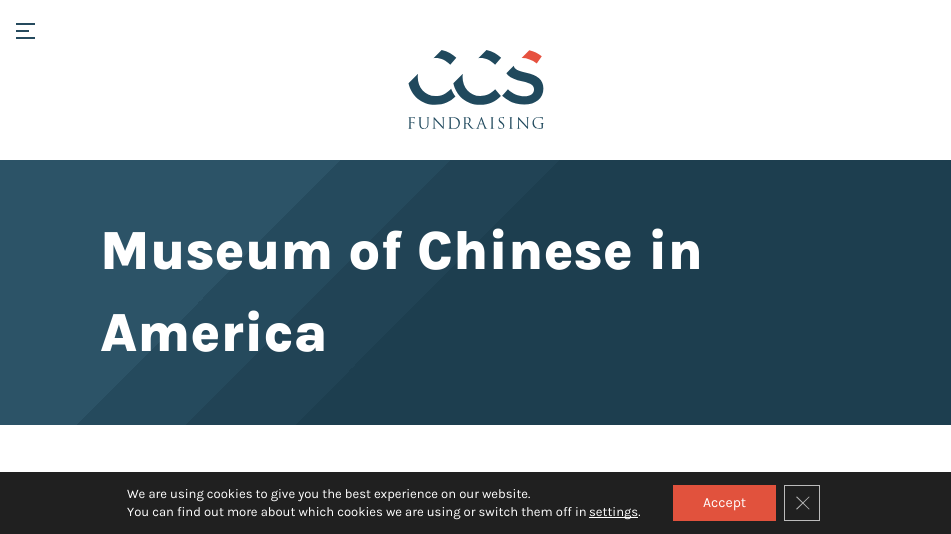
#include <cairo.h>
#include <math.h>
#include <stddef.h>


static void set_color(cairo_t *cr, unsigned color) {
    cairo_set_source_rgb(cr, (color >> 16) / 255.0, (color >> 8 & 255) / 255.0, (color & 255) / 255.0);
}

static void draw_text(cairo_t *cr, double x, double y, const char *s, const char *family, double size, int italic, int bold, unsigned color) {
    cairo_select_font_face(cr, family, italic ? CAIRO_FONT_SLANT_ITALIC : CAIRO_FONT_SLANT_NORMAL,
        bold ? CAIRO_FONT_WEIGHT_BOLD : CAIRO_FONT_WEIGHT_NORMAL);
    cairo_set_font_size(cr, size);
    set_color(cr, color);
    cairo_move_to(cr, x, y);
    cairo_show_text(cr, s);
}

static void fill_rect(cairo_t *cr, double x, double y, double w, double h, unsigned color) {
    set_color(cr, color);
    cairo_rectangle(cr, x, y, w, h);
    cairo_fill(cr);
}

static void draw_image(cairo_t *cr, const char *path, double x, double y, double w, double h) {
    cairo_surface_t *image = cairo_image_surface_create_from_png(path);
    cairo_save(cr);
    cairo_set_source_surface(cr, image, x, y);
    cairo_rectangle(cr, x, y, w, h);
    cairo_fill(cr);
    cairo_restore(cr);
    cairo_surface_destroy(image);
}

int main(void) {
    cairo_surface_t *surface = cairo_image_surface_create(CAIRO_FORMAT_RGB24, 951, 534);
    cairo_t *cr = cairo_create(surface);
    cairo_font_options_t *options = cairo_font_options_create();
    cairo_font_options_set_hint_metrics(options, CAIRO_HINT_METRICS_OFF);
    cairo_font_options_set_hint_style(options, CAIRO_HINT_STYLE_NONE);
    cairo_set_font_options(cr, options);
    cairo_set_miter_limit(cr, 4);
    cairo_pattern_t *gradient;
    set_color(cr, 0xFFFFFF);
    cairo_paint(cr);
    fill_rect(cr, 16, 23, 19, 2, 0x254A5D);
    fill_rect(cr, 16, 30, 13, 2, 0x254A5D);
    fill_rect(cr, 16, 37, 19, 2, 0x254A5D);
    draw_image(cr, "assets/img1.png", 408, 50, 136, 79);
    gradient = cairo_pattern_create_linear(171, -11, 780, 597);
    cairo_pattern_add_color_stop_rgba(gradient, 0.28, 0.173, 0.325, 0.404, 1);
    cairo_pattern_add_color_stop_rgba(gradient, 0.28, 0.145, 0.29, 0.365, 1);
    cairo_pattern_add_color_stop_rgba(gradient, 0.37, 0.145, 0.29, 0.365, 1);
    cairo_pattern_add_color_stop_rgba(gradient, 0.37, 0.129, 0.263, 0.333, 1);
    cairo_pattern_add_color_stop_rgba(gradient, 0.46, 0.129, 0.263, 0.333, 1);
    cairo_pattern_add_color_stop_rgba(gradient, 0.46, 0.114, 0.243, 0.31, 1);
    cairo_set_source(cr, gradient);
    cairo_pattern_destroy(gradient);
    cairo_rectangle(cr, 0, 160, 951, 265);
    cairo_fill(cr);
    draw_text(cr, 100, 269, "Museum of Chinese in", "Karla ExtraBold", 55, 0, 0, 0xFFFFFF);
    draw_text(cr, 100, 351, "America", "Karla ExtraBold", 55, 0, 0, 0xFFFFFF);
    fill_rect(cr, 0, 472, 951, 62, 0x202020);
    draw_text(cr, 127, 498, "We are using cookies to give you the best experience on our website.", "Karla", 13, 0, 0, 0xFFFFFF);
    draw_text(cr, 127, 516, "You can find out more about which cookies we are using or switch them off in", "Karla", 13, 0, 0, 0xFFFFFF);
    fill_rect(cr, 589, 517, 49, 1, 0xFFFFFF);
    draw_text(cr, 589, 516, "settings.", "Karla", 13, 0, 0, 0xFFFFFF);
    fill_rect(cr, 673, 485, 103, 36, 0xE1523D);
    draw_text(cr, 703, 507, "Accept", "Karla", 14, 0, 0, 0xFFFFFF);
    cairo_rectangle(cr, 784.5, 485.5, 35, 35);
    set_color(cr, 0xBCBCBC);
    cairo_set_line_width(cr, 1);
    cairo_stroke(cr);
    cairo_new_path(cr);
    cairo_move_to(cr, 809, 496.5);
    cairo_line_to(cr, 809.5, 497);
    cairo_line_to(cr, 797, 509.5);
    cairo_line_to(cr, 796, 509);
    cairo_close_path(cr);
    cairo_fill(cr);
    cairo_new_path(cr);
    cairo_move_to(cr, 796, 497);
    cairo_line_to(cr, 797, 496.5);
    cairo_line_to(cr, 809.5, 509);
    cairo_line_to(cr, 809, 509.5);
    cairo_close_path(cr);
    cairo_fill(cr);
    cairo_surface_write_to_png(surface, "output.png");
    cairo_font_options_destroy(options);
    cairo_destroy(cr);
    cairo_surface_destroy(surface);
    return 0;
}
